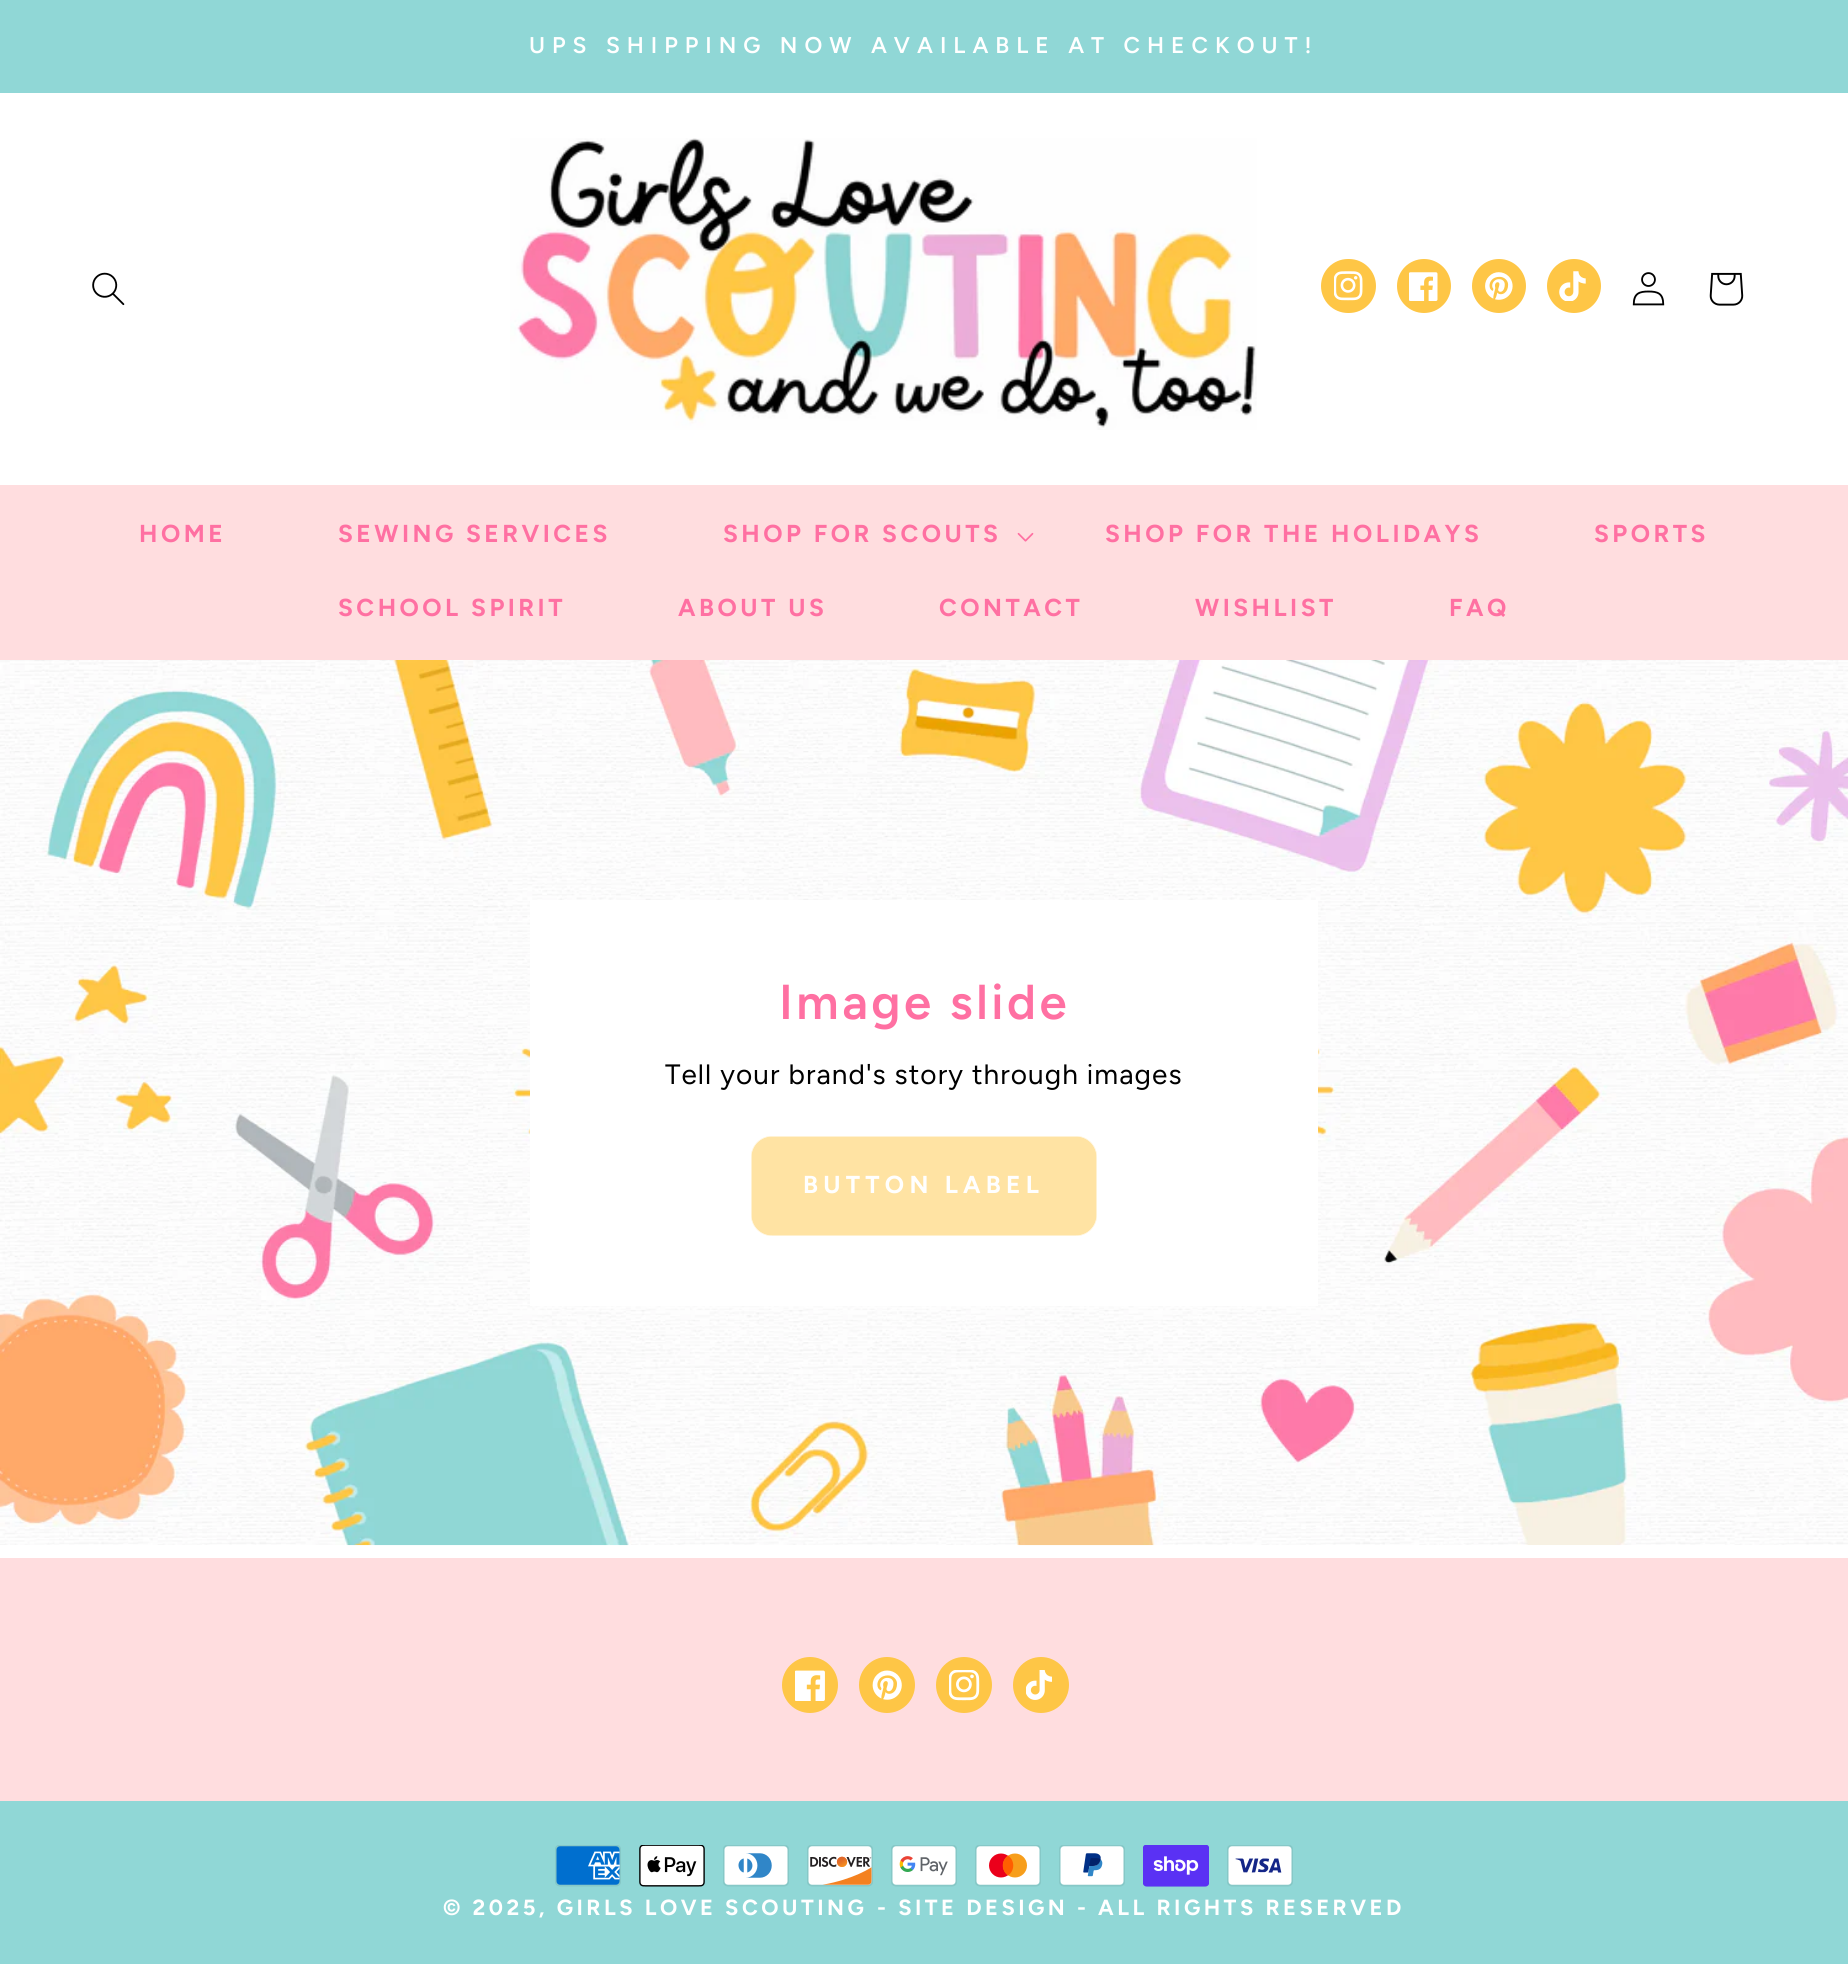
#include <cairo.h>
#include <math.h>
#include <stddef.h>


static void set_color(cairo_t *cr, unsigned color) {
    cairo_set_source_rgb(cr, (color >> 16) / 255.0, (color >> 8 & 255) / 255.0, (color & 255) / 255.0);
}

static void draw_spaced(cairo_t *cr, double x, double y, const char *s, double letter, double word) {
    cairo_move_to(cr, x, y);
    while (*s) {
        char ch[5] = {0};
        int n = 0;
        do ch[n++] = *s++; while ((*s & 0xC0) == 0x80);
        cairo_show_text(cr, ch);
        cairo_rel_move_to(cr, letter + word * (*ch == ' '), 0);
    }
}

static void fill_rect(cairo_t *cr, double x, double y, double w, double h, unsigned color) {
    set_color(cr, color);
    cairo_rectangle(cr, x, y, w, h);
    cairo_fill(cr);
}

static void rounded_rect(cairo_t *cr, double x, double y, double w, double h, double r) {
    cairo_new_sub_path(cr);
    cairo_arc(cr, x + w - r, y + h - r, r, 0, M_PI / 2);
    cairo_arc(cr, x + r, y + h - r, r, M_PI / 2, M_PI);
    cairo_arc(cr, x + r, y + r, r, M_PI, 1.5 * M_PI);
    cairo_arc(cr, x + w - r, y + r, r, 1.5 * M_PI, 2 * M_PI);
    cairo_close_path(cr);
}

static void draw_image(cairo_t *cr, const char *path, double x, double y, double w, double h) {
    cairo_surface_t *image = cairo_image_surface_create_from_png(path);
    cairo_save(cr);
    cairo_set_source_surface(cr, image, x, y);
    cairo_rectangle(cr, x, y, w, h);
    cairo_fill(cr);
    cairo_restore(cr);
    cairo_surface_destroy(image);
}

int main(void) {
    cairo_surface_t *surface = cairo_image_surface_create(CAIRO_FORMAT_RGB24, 1848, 1964);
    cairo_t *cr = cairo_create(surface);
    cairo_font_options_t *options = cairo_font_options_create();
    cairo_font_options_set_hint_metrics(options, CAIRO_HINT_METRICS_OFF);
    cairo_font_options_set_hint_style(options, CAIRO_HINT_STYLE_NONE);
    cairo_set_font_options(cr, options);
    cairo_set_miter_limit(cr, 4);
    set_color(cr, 0xFFFFFF);
    cairo_paint(cr);
    fill_rect(cr, 0, 0, 1848, 93, 0x90D7D6);
    cairo_select_font_face(cr, "Figtree SemiBold", CAIRO_FONT_SLANT_NORMAL, CAIRO_FONT_WEIGHT_NORMAL);
    cairo_set_font_size(cr, 22.75);
    set_color(cr, 0xFFFFFF);
    draw_spaced(cr, 529, 53, "UPS SHIPPING NOW AVAILABLE AT CHECKOUT!", 7, 0);
    draw_image(cr, "assets/img1.png", 92, 272, 33, 34);
    draw_image(cr, "assets/img2.png", 510, 138, 747, 292);
    set_color(cr, 0xFEC646);
    rounded_rect(cr, 1321, 259, 55, 54, 27);
    cairo_fill(cr);
    draw_image(cr, "assets/img3.png", 1334, 271, 29, 30);
    cairo_arc(cr, 1424, 286, 27, 0, 2 * M_PI);
    cairo_fill(cr);
    draw_image(cr, "assets/img4.png", 1409, 272, 29, 29);
    cairo_arc(cr, 1499, 286, 27, 0, 2 * M_PI);
    cairo_fill(cr);
    draw_image(cr, "assets/img5.png", 1485, 272, 28, 28);
    cairo_arc(cr, 1574, 286, 27, 0, 2 * M_PI);
    cairo_fill(cr);
    draw_image(cr, "assets/img6.png", 1559, 271, 27, 30);
    draw_image(cr, "assets/img7.png", 1632, 272, 33, 34);
    draw_image(cr, "assets/img8.png", 1709, 272, 35, 34);
    fill_rect(cr, 0, 485, 1848, 175, 0xFFDDDF);
    cairo_select_font_face(cr, "Figtree", CAIRO_FONT_SLANT_NORMAL, CAIRO_FONT_WEIGHT_BOLD);
    cairo_set_font_size(cr, 24.5);
    set_color(cr, 0xFF70A2);
    draw_spaced(cr, 139, 542, "HOME", 3.5, 0);
    draw_spaced(cr, 338, 542, "SEWING SERVICES", 3.5, 0);
    draw_spaced(cr, 723, 542, "SHOP FOR SCOUTS", 3.5, 0);
    draw_image(cr, "assets/img9.png", 1017, 532, 17, 10);
    draw_spaced(cr, 1105, 542, "SHOP FOR THE HOLIDAYS", 3.5, 0);
    draw_spaced(cr, 1594, 542, "SPORTS", 3.5, 0);
    draw_spaced(cr, 338, 616, "SCHOOL SPIRIT", 3.5, 0);
    draw_spaced(cr, 678, 616, "ABOUT US", 3.5, 0);
    draw_spaced(cr, 939, 616, "CONTACT", 3.5, 0);
    draw_spaced(cr, 1195, 616, "WISHLIST", 3.5, 0);
    draw_spaced(cr, 1449, 616, "FAQ", 3.5, 0);
    draw_image(cr, "assets/img10.png", 0, 660, 1848, 886);
    fill_rect(cr, 530, 900, 788, 406, 0xFFFFFF);
    cairo_select_font_face(cr, "Figtree SemiBold", CAIRO_FONT_SLANT_NORMAL, CAIRO_FONT_WEIGHT_NORMAL);
    cairo_set_font_size(cr, 49);
    set_color(cr, 0xFF70A2);
    draw_spaced(cr, 779, 1019, "Image slide", 3.5, 0);
    cairo_select_font_face(cr, "Figtree", CAIRO_FONT_SLANT_NORMAL, CAIRO_FONT_WEIGHT_NORMAL);
    cairo_set_font_size(cr, 28);
    set_color(cr, 0x000000);
    draw_spaced(cr, 665, 1084, "Tell your brand's story through images", 1.05, 0);
    set_color(cr, 0xFFE3A3);
    rounded_rect(cr, 751, 1136, 346, 100, 21);
    cairo_fill(cr);
    rounded_rect(cr, 751.25, 1136.25, 345.5, 99.5, 20.75);
    set_color(cr, 0xFFFFFF);
    cairo_set_line_width(cr, 0.5);
    cairo_stroke(cr);
    cairo_select_font_face(cr, "Figtree", CAIRO_FONT_SLANT_NORMAL, CAIRO_FONT_WEIGHT_BOLD);
    cairo_set_font_size(cr, 24.5);
    draw_spaced(cr, 803, 1193, "BUTTON LABEL", 5.25, 0);
    fill_rect(cr, 0, 1558, 1848, 243, 0xFFDDDF);
    set_color(cr, 0xFEC646);
    cairo_new_path(cr);
    cairo_arc(cr, 810, 1685, 28, 0, 2 * M_PI);
    cairo_fill(cr);
    draw_image(cr, "assets/img11.png", 795, 1670, 30, 31);
    cairo_arc(cr, 887, 1685, 28, 0, 2 * M_PI);
    cairo_fill(cr);
    draw_image(cr, "assets/img12.png", 872, 1670, 30, 30);
    cairo_arc(cr, 964, 1685, 28, 0, 2 * M_PI);
    cairo_fill(cr);
    draw_image(cr, "assets/img13.png", 949, 1670, 31, 31);
    cairo_arc(cr, 1041, 1685, 28, 0, 2 * M_PI);
    cairo_fill(cr);
    draw_image(cr, "assets/img14.png", 1026, 1670, 26, 30);
    fill_rect(cr, 0, 1801, 1848, 163, 0x90D7D6);
    draw_image(cr, "assets/img15.png", 555, 1845, 66, 42);
    draw_image(cr, "assets/img16.png", 639, 1845, 66, 42);
    draw_image(cr, "assets/img17.png", 723, 1845, 66, 42);
    draw_image(cr, "assets/img18.png", 807, 1845, 66, 42);
    draw_image(cr, "assets/img19.png", 891, 1845, 66, 42);
    draw_image(cr, "assets/img20.png", 975, 1845, 66, 42);
    draw_image(cr, "assets/img21.png", 1059, 1845, 66, 42);
    draw_image(cr, "assets/img22.png", 1143, 1845, 66, 42);
    draw_image(cr, "assets/img23.png", 1227, 1845, 66, 42);
    cairo_set_font_size(cr, 21.9);
    set_color(cr, 0xFFFFFF);
    draw_spaced(cr, 443, 1915, "© 2025, GIRLS LOVE SCOUTING", 3.5, 0);
    draw_spaced(cr, 877, 1915, "- SITE DESIGN - ALL RIGHTS RESERVED", 3.5, 0);
    cairo_surface_write_to_png(surface, "output.png");
    cairo_font_options_destroy(options);
    cairo_destroy(cr);
    cairo_surface_destroy(surface);
    return 0;
}
